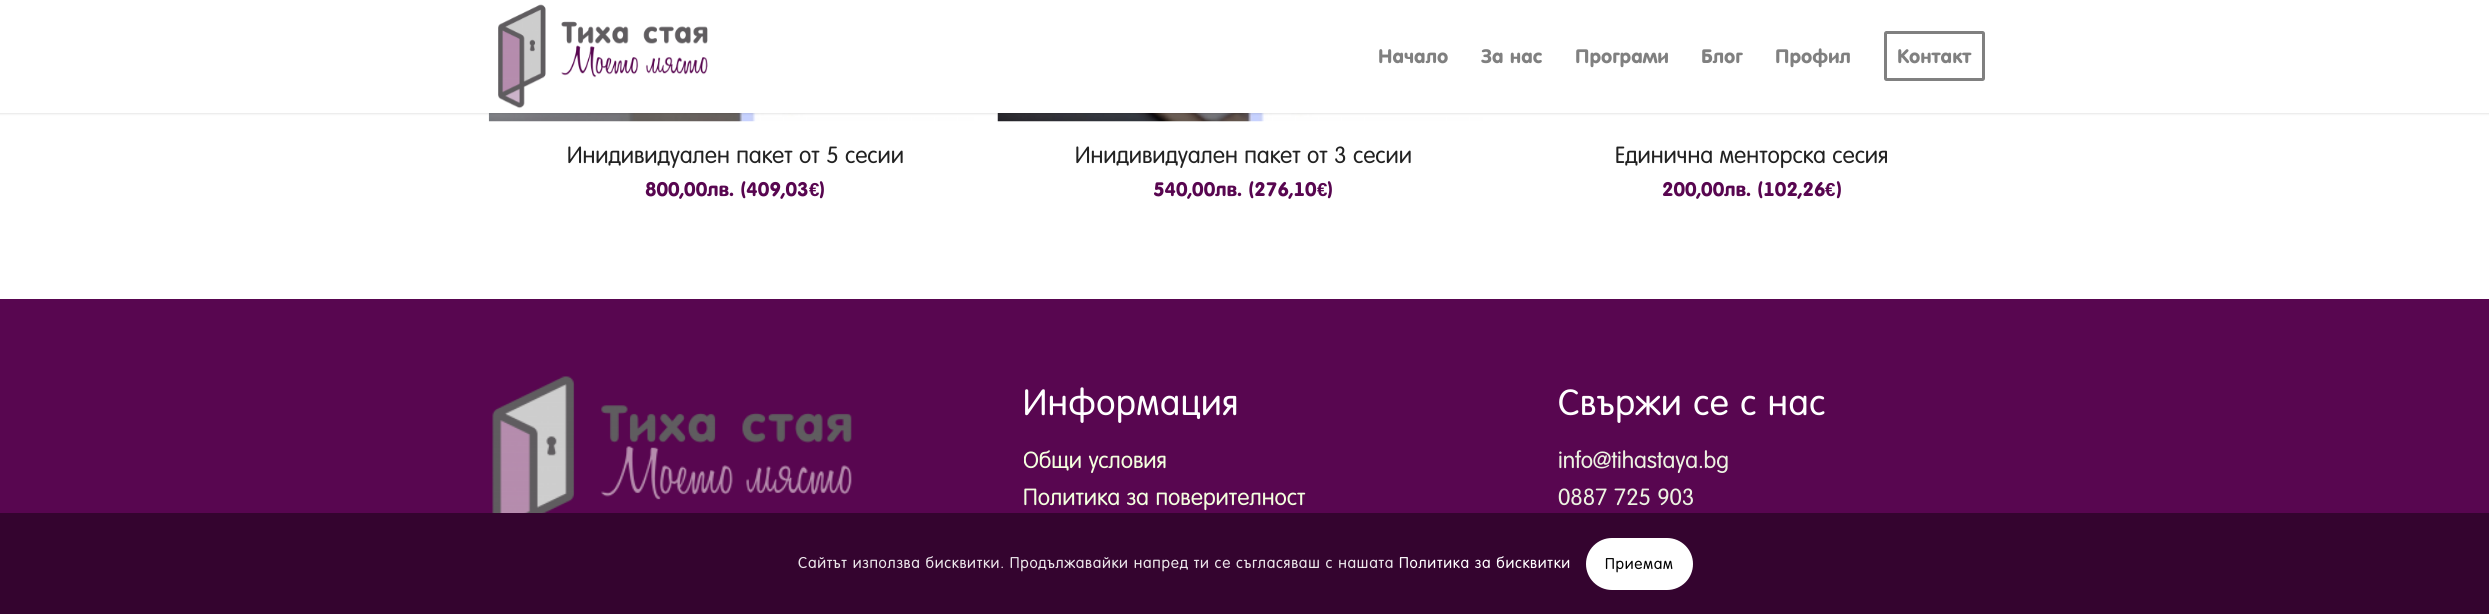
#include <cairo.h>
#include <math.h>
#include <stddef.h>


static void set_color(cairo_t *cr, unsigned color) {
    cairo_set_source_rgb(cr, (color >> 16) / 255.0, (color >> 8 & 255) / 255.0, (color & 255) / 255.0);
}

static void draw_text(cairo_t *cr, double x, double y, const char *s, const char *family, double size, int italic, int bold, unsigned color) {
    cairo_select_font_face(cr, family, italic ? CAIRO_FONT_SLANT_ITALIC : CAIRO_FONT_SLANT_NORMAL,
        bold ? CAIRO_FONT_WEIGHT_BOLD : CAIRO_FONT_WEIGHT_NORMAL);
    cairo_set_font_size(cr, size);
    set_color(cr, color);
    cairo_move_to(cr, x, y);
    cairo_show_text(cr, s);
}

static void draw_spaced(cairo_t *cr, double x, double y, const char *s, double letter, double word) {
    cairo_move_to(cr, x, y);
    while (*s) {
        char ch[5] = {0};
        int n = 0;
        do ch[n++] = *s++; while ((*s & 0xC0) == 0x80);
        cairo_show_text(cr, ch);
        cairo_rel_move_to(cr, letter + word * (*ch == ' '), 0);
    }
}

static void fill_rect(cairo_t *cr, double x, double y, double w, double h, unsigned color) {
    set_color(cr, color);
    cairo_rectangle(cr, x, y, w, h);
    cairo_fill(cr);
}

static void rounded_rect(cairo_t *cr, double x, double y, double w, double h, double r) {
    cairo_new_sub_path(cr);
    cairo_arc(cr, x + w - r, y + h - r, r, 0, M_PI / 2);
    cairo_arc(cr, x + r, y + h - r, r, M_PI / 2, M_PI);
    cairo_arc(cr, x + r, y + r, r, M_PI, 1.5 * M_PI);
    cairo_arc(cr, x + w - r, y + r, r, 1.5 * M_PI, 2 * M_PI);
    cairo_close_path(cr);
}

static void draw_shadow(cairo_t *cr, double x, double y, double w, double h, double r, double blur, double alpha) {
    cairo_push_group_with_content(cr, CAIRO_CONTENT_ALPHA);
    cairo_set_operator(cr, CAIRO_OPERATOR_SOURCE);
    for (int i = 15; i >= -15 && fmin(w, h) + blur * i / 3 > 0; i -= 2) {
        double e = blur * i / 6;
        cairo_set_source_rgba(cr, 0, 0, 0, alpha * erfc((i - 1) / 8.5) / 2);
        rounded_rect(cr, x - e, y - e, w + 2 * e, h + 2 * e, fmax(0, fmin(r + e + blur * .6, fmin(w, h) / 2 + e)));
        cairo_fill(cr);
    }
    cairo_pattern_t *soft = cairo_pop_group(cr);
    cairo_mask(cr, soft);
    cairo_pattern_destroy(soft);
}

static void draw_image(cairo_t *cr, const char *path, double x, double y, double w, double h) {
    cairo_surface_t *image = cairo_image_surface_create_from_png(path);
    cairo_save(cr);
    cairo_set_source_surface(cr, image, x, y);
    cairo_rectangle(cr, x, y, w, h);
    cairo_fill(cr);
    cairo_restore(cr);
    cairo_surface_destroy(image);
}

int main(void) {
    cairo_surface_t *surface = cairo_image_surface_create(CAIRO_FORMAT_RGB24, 2489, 614);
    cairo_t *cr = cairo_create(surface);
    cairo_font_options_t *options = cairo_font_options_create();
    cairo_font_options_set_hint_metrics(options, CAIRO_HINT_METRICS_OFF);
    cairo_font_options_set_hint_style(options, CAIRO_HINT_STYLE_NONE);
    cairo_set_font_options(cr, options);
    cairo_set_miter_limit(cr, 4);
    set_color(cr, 0xFFFFFF);
    cairo_paint(cr);
    draw_image(cr, "assets/img2.png", 488, 113, 494, 9);
    draw_image(cr, "assets/img3.png", 997, 113, 493, 9);
    set_color(cr, 0x000000);
    draw_shadow(cr, -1, -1, 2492, 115, 0, 1, 0.1);
    fill_rect(cr, 0, 0, 2489, 113, 0xFFFFFF);
    draw_image(cr, "assets/img1.png", 498, 4, 210, 105);
    draw_text(cr, 1378, 63, "Начало", "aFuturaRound", 18.75, 0, 1, 0x808080);
    draw_text(cr, 1481, 63, "За нас", "aFuturaRound", 18.75, 0, 1, 0x808080);
    draw_text(cr, 1575, 63, "Програми", "aFuturaRound", 18.75, 0, 1, 0x808080);
    draw_text(cr, 1701, 63, "Блог", "aFuturaRound", 18.75, 0, 1, 0x808080);
    draw_text(cr, 1775, 63, "Профил", "aFuturaRound", 18.75, 0, 1, 0x808080);
    rounded_rect(cr, 1885.5, 32.5, 98, 47, 1);
    cairo_set_line_width(cr, 3);
    cairo_stroke(cr);
    draw_text(cr, 1897, 63, "Контакт", "aFuturaRound", 18.75, 0, 1, 0x808080);
    draw_text(cr, 567, 163, "Инидивидуален пакет от 5 сесии", "aFuturaRound", 22.5, 0, 0, 0x222222);
    draw_text(cr, 645, 196, "800,00лв. (409,03", "aFuturaRound", 18.75, 0, 1, 0x580650);
    draw_text(cr, 809, 196, "€", "Liberation Sans", 18.75, 0, 1, 0x580650);
    draw_text(cr, 819, 196, ")", "aFuturaRound", 18.75, 0, 1, 0x580650);
    draw_text(cr, 1075, 163, "Инидивидуален пакет от 3 сесии", "aFuturaRound", 22.5, 0, 0, 0x222222);
    draw_text(cr, 1153, 196, "540,00лв. (276,10", "aFuturaRound", 18.75, 0, 1, 0x580650);
    draw_text(cr, 1317, 196, "€", "Liberation Sans", 18.75, 0, 1, 0x580650);
    draw_text(cr, 1327, 196, ")", "aFuturaRound", 18.75, 0, 1, 0x580650);
    draw_text(cr, 1615, 163, "Eдинична менторска сесия", "aFuturaRound", 22.5, 0, 0, 0x222222);
    draw_text(cr, 1662, 196, "200,00лв. (102,26", "aFuturaRound", 18.75, 0, 1, 0x580650);
    draw_text(cr, 1825, 196, "€", "Liberation Sans", 18.75, 0, 1, 0x580650);
    draw_text(cr, 1836, 196, ")", "aFuturaRound", 18.75, 0, 1, 0x580650);
    fill_rect(cr, 0, 299, 2489, 214, 0x580650);
    draw_image(cr, "assets/img4.png", 492, 376, 360, 137);
    cairo_select_font_face(cr, "aFuturaRound", CAIRO_FONT_SLANT_NORMAL, CAIRO_FONT_WEIGHT_NORMAL);
    cairo_set_font_size(cr, 35);
    set_color(cr, 0xFFFFFF);
    draw_spaced(cr, 1023, 415, "Информация", 0.75, 0);
    cairo_save(cr);
    cairo_rectangle(cr, 1024, 355, 442, 218);
    cairo_clip(cr);
    draw_text(cr, 1023, 468, "Общи условия", "aFuturaRound", 22.5, 0, 0, 0xF3FFDE);
    cairo_restore(cr);
    draw_text(cr, 1023, 505, "Политика за поверителност", "aFuturaRound", 22.5, 0, 0, 0xF3FFDE);
    cairo_set_font_size(cr, 35);
    set_color(cr, 0xFFFFFF);
    draw_spaced(cr, 1558, 415, "Свържи се с нас", 0.75, 0);
    draw_text(cr, 1558, 468, "info@tihastaya.bg", "aFuturaRound", 22.5, 0, 0, 0xECF2E1);
    draw_text(cr, 1558, 505, "0887 725 903", "aFuturaRound", 22.5, 0, 0, 0xECF2E1);
    fill_rect(cr, 0, 513, 2489, 101, 0x34042F);
    cairo_set_font_size(cr, 15);
    set_color(cr, 0xEBE6EA);
    draw_spaced(cr, 798, 568, "Сайтът използва бисквитки. Продължавайки напред ти се съгласяваш с нашата", 0.75, 0);
    set_color(cr, 0xFFFFFF);
    draw_spaced(cr, 1399, 568, "Политика за бисквитки", 0.75, 0);
    rounded_rect(cr, 1586, 538, 107, 52, 26);
    cairo_fill(cr);
    set_color(cr, 0x000000);
    draw_spaced(cr, 1605, 569, "Приемам", 0.75, 0);
    cairo_surface_write_to_png(surface, "output.png");
    cairo_font_options_destroy(options);
    cairo_destroy(cr);
    cairo_surface_destroy(surface);
    return 0;
}
